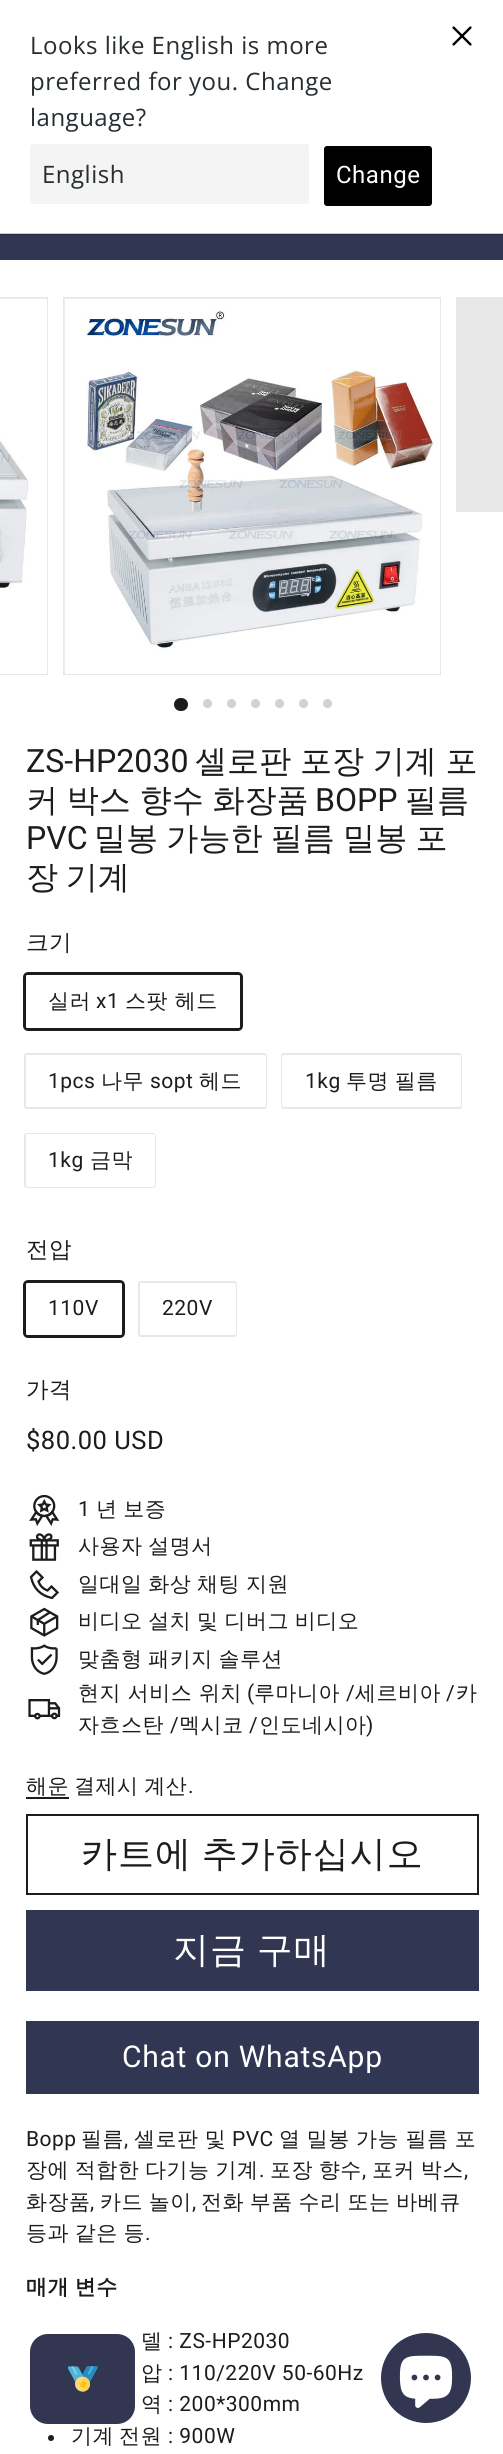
#include <cairo.h>
#include <math.h>
#include <stddef.h>


static void set_color(cairo_t *cr, unsigned color) {
    cairo_set_source_rgb(cr, (color >> 16) / 255.0, (color >> 8 & 255) / 255.0, (color & 255) / 255.0);
}

static void draw_text(cairo_t *cr, double x, double y, const char *s, const char *family, double size, int italic, int bold, unsigned color) {
    cairo_select_font_face(cr, family, italic ? CAIRO_FONT_SLANT_ITALIC : CAIRO_FONT_SLANT_NORMAL,
        bold ? CAIRO_FONT_WEIGHT_BOLD : CAIRO_FONT_WEIGHT_NORMAL);
    cairo_set_font_size(cr, size);
    set_color(cr, color);
    cairo_move_to(cr, x, y);
    cairo_show_text(cr, s);
}

static void draw_spaced(cairo_t *cr, double x, double y, const char *s, double letter, double word) {
    cairo_move_to(cr, x, y);
    while (*s) {
        char ch[5] = {0};
        int n = 0;
        do ch[n++] = *s++; while ((*s & 0xC0) == 0x80);
        cairo_show_text(cr, ch);
        cairo_rel_move_to(cr, letter + word * (*ch == ' '), 0);
    }
}

static void fill_rect(cairo_t *cr, double x, double y, double w, double h, unsigned color) {
    set_color(cr, color);
    cairo_rectangle(cr, x, y, w, h);
    cairo_fill(cr);
}

static void rounded_rect(cairo_t *cr, double x, double y, double w, double h, double r) {
    cairo_new_sub_path(cr);
    cairo_arc(cr, x + w - r, y + h - r, r, 0, M_PI / 2);
    cairo_arc(cr, x + r, y + h - r, r, M_PI / 2, M_PI);
    cairo_arc(cr, x + r, y + r, r, M_PI, 1.5 * M_PI);
    cairo_arc(cr, x + w - r, y + r, r, 1.5 * M_PI, 2 * M_PI);
    cairo_close_path(cr);
}

static void draw_image(cairo_t *cr, const char *path, double x, double y, double w, double h) {
    cairo_surface_t *image = cairo_image_surface_create_from_png(path);
    cairo_save(cr);
    cairo_set_source_surface(cr, image, x, y);
    cairo_rectangle(cr, x, y, w, h);
    cairo_fill(cr);
    cairo_restore(cr);
    cairo_surface_destroy(image);
}

int main(void) {
    cairo_surface_t *surface = cairo_image_surface_create(CAIRO_FORMAT_RGB24, 503, 2454);
    cairo_t *cr = cairo_create(surface);
    cairo_font_options_t *options = cairo_font_options_create();
    cairo_font_options_set_hint_metrics(options, CAIRO_HINT_METRICS_OFF);
    cairo_font_options_set_hint_style(options, CAIRO_HINT_STYLE_NONE);
    cairo_set_font_options(cr, options);
    cairo_set_miter_limit(cr, 4);
    cairo_pattern_t *gradient;
    set_color(cr, 0xFFFFFF);
    cairo_paint(cr);
    fill_rect(cr, 0, 233, 503, 1, 0xCCCCCC);
    cairo_select_font_face(cr, "Open Sans", CAIRO_FONT_SLANT_NORMAL, CAIRO_FONT_WEIGHT_NORMAL);
    cairo_set_font_size(cr, 24);
    set_color(cr, 0x272E31);
    draw_spaced(cr, 30, 54, "Looks like English is more", 0.5, 0);
    draw_spaced(cr, 30, 90, "preferred for you. Change", 0.5, 0);
    draw_spaced(cr, 30, 126, "language?", 0.5, 0);
    set_color(cr, 0xF4F4F4);
    rounded_rect(cr, 30, 144, 279, 60, 3);
    cairo_fill(cr);
    set_color(cr, 0x272E31);
    draw_spaced(cr, 42, 183, "English", 0.5, 0);
    set_color(cr, 0x000000);
    rounded_rect(cr, 324, 146, 108, 60, 3);
    cairo_fill(cr);
    cairo_select_font_face(cr, "Roboto", CAIRO_FONT_SLANT_NORMAL, CAIRO_FONT_WEIGHT_NORMAL);
    set_color(cr, 0xFFFFFF);
    draw_spaced(cr, 336, 183, "Change", 0.5, 0);
    draw_image(cr, "assets/img1.png", 452, 26, 20, 20);
    fill_rect(cr, 0, 235, 503, 25, 0x313652);
    fill_rect(cr, 0, 234, 503, 1, 0x272B42);
    cairo_rectangle(cr, -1, 298, 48, 376);
    set_color(cr, 0xE8E8E1);
    cairo_stroke(cr);
    fill_rect(cr, 0, 299, 47, 375, 0xFFFFFF);
    draw_image(cr, "assets/img2.png", 0, 298, 46, 290);
    cairo_rectangle(cr, 64, 298, 376, 376);
    set_color(cr, 0xE8E8E1);
    cairo_stroke(cr);
    fill_rect(cr, 65, 299, 375, 375, 0xFFFFFF);
    draw_image(cr, "assets/img3.png", 64, 298, 375, 375);
    cairo_rectangle(cr, 457, 298, 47, 213);
    set_color(cr, 0xE8E8E1);
    cairo_stroke(cr);
    gradient = cairo_pattern_create_linear(456, 305, 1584, 504);
    cairo_pattern_add_color_stop_rgba(gradient, 0.4, 0.906, 0.906, 0.906, 1);
    cairo_pattern_add_color_stop_rgba(gradient, 0.63, 1, 1, 1, 1);
    cairo_pattern_add_color_stop_rgba(gradient, 0.79, 0.906, 0.906, 0.906, 1);
    cairo_set_source(cr, gradient);
    cairo_pattern_destroy(gradient);
    cairo_rectangle(cr, 458, 299, 45, 211);
    cairo_fill(cr);
    set_color(cr, 0x1C1C1C);
    rounded_rect(cr, 174, 698, 14, 13, 6.5);
    cairo_fill(cr);
    set_color(cr, 0xD2D2D2);
    cairo_arc(cr, 207.5, 703.5, 4.5, 0, 2 * M_PI);
    cairo_fill(cr);
    cairo_arc(cr, 231.5, 703.5, 4.5, 0, 2 * M_PI);
    cairo_fill(cr);
    cairo_arc(cr, 255.5, 703.5, 4.5, 0, 2 * M_PI);
    cairo_fill(cr);
    cairo_arc(cr, 279.5, 703.5, 4.5, 0, 2 * M_PI);
    cairo_fill(cr);
    cairo_arc(cr, 303.5, 703.5, 4.5, 0, 2 * M_PI);
    cairo_fill(cr);
    cairo_arc(cr, 327.5, 703.5, 4.5, 0, 2 * M_PI);
    cairo_fill(cr);
    draw_text(cr, 26, 772, "ZS-HP2030", "Roboto", 32.1, 0, 0, 0x1C1C1C);
    cairo_select_font_face(cr, "WenQuanYi Zen Hei Medium", CAIRO_FONT_SLANT_NORMAL, CAIRO_FONT_WEIGHT_NORMAL);
    draw_spaced(cr, 195, 772, "셀로판 포장 기계 포", 0, -1);
    draw_spaced(cr, 26, 811, "커 박스 향수 화장품", 0, -1);
    draw_text(cr, 315, 811, "BOPP", "Roboto", 32.1, 0, 0, 0x1C1C1C);
    draw_text(cr, 405, 811, "필름", "WenQuanYi Zen Hei Medium", 32.1, 0, 0, 0x1C1C1C);
    draw_text(cr, 26, 849, "PVC", "Roboto", 32.1, 0, 0, 0x1C1C1C);
    cairo_select_font_face(cr, "WenQuanYi Zen Hei Medium", CAIRO_FONT_SLANT_NORMAL, CAIRO_FONT_WEIGHT_NORMAL);
    draw_spaced(cr, 94, 849, "밀봉 가능한 필름 밀봉 포", 0, -1.5);
    draw_spaced(cr, 26, 888, "장 기계", 0, -2);
    cairo_set_font_size(cr, 22.5);
    draw_spaced(cr, 26, 950, "크기", 0.5, 0);
    rounded_rect(cr, 24.5, 973.5, 217, 56, 3.5);
    cairo_set_line_width(cr, 3);
    cairo_stroke(cr);
    set_color(cr, 0xFFFFFF);
    rounded_rect(cr, 26, 975, 214, 53, 1.5);
    cairo_fill(cr);
    cairo_set_font_size(cr, 21);
    set_color(cr, 0x1C1C1C);
    draw_spaced(cr, 48, 1008, "실러", 0.5, 0);
    cairo_select_font_face(cr, "Roboto", CAIRO_FONT_SLANT_NORMAL, CAIRO_FONT_WEIGHT_NORMAL);
    draw_spaced(cr, 96, 1008, "x1", 0.5, 0);
    cairo_select_font_face(cr, "WenQuanYi Zen Hei Medium", CAIRO_FONT_SLANT_NORMAL, CAIRO_FONT_WEIGHT_NORMAL);
    draw_spaced(cr, 125, 1008, "스팟 헤드", 0.5, 0);
    rounded_rect(cr, 25, 1054, 241, 54, 2);
    set_color(cr, 0xE8E8E1);
    cairo_set_line_width(cr, 2);
    cairo_stroke(cr);
    set_color(cr, 0xFFFFFF);
    rounded_rect(cr, 26, 1055, 240, 52, 1.5);
    cairo_fill(cr);
    cairo_select_font_face(cr, "Roboto", CAIRO_FONT_SLANT_NORMAL, CAIRO_FONT_WEIGHT_NORMAL);
    set_color(cr, 0x1C1C1C);
    draw_spaced(cr, 48, 1088, "1pcs", 0.5, 0);
    cairo_select_font_face(cr, "WenQuanYi Zen Hei Medium", CAIRO_FONT_SLANT_NORMAL, CAIRO_FONT_WEIGHT_NORMAL);
    draw_spaced(cr, 101, 1088, "나무", 0.5, 0);
    cairo_select_font_face(cr, "Roboto", CAIRO_FONT_SLANT_NORMAL, CAIRO_FONT_WEIGHT_NORMAL);
    draw_spaced(cr, 150, 1088, "sopt", 0.5, 0);
    cairo_select_font_face(cr, "WenQuanYi Zen Hei Medium", CAIRO_FONT_SLANT_NORMAL, CAIRO_FONT_WEIGHT_NORMAL);
    draw_spaced(cr, 199, 1088, "헤드", 0.5, 0);
    rounded_rect(cr, 282, 1054, 179, 54, 2);
    set_color(cr, 0xE8E8E1);
    cairo_stroke(cr);
    set_color(cr, 0xFFFFFF);
    rounded_rect(cr, 282, 1055, 179, 52, 1.5);
    cairo_fill(cr);
    cairo_select_font_face(cr, "Roboto", CAIRO_FONT_SLANT_NORMAL, CAIRO_FONT_WEIGHT_NORMAL);
    set_color(cr, 0x1C1C1C);
    draw_spaced(cr, 305, 1088, "1kg", 0.5, 0);
    cairo_select_font_face(cr, "WenQuanYi Zen Hei Medium", CAIRO_FONT_SLANT_NORMAL, CAIRO_FONT_WEIGHT_NORMAL);
    draw_spaced(cr, 346, 1088, "투명 필름", 0.5, -1);
    rounded_rect(cr, 25, 1134, 130, 53, 2);
    set_color(cr, 0xE8E8E1);
    cairo_stroke(cr);
    set_color(cr, 0xFFFFFF);
    rounded_rect(cr, 26, 1134, 129, 53, 1.5);
    cairo_fill(cr);
    cairo_select_font_face(cr, "Roboto", CAIRO_FONT_SLANT_NORMAL, CAIRO_FONT_WEIGHT_NORMAL);
    set_color(cr, 0x1C1C1C);
    draw_spaced(cr, 48, 1167, "1kg", 0.5, 0);
    cairo_select_font_face(cr, "WenQuanYi Zen Hei Medium", CAIRO_FONT_SLANT_NORMAL, CAIRO_FONT_WEIGHT_NORMAL);
    draw_spaced(cr, 90, 1167, "금막", 0.5, 0);
    cairo_set_font_size(cr, 22.5);
    draw_spaced(cr, 26, 1257, "전압", 0.5, 0);
    rounded_rect(cr, 24.5, 1281.5, 99, 55, 3.5);
    cairo_set_line_width(cr, 3);
    cairo_stroke(cr);
    set_color(cr, 0xFFFFFF);
    rounded_rect(cr, 26, 1283, 96, 52, 1.5);
    cairo_fill(cr);
    cairo_select_font_face(cr, "Roboto", CAIRO_FONT_SLANT_NORMAL, CAIRO_FONT_WEIGHT_NORMAL);
    cairo_set_font_size(cr, 21);
    set_color(cr, 0x1C1C1C);
    draw_spaced(cr, 48, 1315, "110V", 0.5, 0);
    rounded_rect(cr, 139, 1282, 97, 54, 2);
    set_color(cr, 0xE8E8E1);
    cairo_set_line_width(cr, 2);
    cairo_stroke(cr);
    set_color(cr, 0xFFFFFF);
    rounded_rect(cr, 140, 1283, 96, 52, 1.5);
    cairo_fill(cr);
    set_color(cr, 0x1C1C1C);
    draw_spaced(cr, 162, 1315, "220V", 0.5, 0);
    cairo_select_font_face(cr, "WenQuanYi Zen Hei Medium", CAIRO_FONT_SLANT_NORMAL, CAIRO_FONT_WEIGHT_NORMAL);
    cairo_set_font_size(cr, 22.5);
    draw_spaced(cr, 26, 1397, "가격", 0.5, 0);
    cairo_select_font_face(cr, "Roboto", CAIRO_FONT_SLANT_NORMAL, CAIRO_FONT_WEIGHT_NORMAL);
    cairo_set_font_size(cr, 25.5);
    draw_spaced(cr, 26, 1449, "$80.00 USD", 0.5, 0);
    draw_image(cr, "assets/img4.png", 29, 1494, 31, 32);
    cairo_set_font_size(cr, 21);
    draw_spaced(cr, 78, 1516, "1", 0.5, 0);
    cairo_select_font_face(cr, "WenQuanYi Zen Hei Medium", CAIRO_FONT_SLANT_NORMAL, CAIRO_FONT_WEIGHT_NORMAL);
    draw_spaced(cr, 96, 1516, "년 보증", 0.5, -1);
    draw_image(cr, "assets/img5.png", 29, 1533, 30, 28);
    draw_spaced(cr, 78, 1553, "사용자 설명서", 0.5, -1);
    cairo_new_path(cr);
    cairo_move_to(cr, 36.5, 1571.5);
    cairo_line_to(cr, 42.5, 1577.5);
    cairo_line_to(cr, 38.5, 1581.5);
    cairo_curve_to(cr, 40, 1585.5, 42.5, 1588.5, 47.5, 1590.5);
    cairo_line_to(cr, 51.5, 1586.5);
    cairo_line_to(cr, 57.5, 1592.5);
    cairo_line_to(cr, 52, 1598);
    cairo_curve_to(cr, 40.5, 1595.5, 33.5, 1588.5, 31, 1577);
    cairo_close_path(cr);
    cairo_set_line_width(cr, 2.3);
    cairo_stroke(cr);
    draw_spaced(cr, 78, 1591, "일대일 화상 채팅 지원", 0.5, -1);
    draw_image(cr, "assets/img6.png", 30, 1607, 29, 30);
    draw_spaced(cr, 78, 1628, "비디오 설치 및 디버그 비디오", 0.5, -1);
    draw_image(cr, "assets/img7.png", 30, 1644, 28, 31);
    draw_spaced(cr, 78, 1666, "맞춤형 패키지 솔루션", 0.5, -1);
    draw_image(cr, "assets/img8.png", 28, 1699, 33, 21);
    draw_spaced(cr, 78, 1700, "현지 서비스 위치", 0.5, 0);
    cairo_select_font_face(cr, "Roboto", CAIRO_FONT_SLANT_NORMAL, CAIRO_FONT_WEIGHT_NORMAL);
    draw_spaced(cr, 247, 1700, "(", 0.5, 0);
    cairo_select_font_face(cr, "WenQuanYi Zen Hei Medium", CAIRO_FONT_SLANT_NORMAL, CAIRO_FONT_WEIGHT_NORMAL);
    draw_spaced(cr, 254, 1700, "루마니아", 0.5, 0);
    cairo_select_font_face(cr, "Roboto", CAIRO_FONT_SLANT_NORMAL, CAIRO_FONT_WEIGHT_NORMAL);
    draw_spaced(cr, 346, 1700, "/", 0.5, 0);
    cairo_select_font_face(cr, "WenQuanYi Zen Hei Medium", CAIRO_FONT_SLANT_NORMAL, CAIRO_FONT_WEIGHT_NORMAL);
    draw_spaced(cr, 355, 1700, "세르비아", 0.5, 0);
    cairo_select_font_face(cr, "Roboto", CAIRO_FONT_SLANT_NORMAL, CAIRO_FONT_WEIGHT_NORMAL);
    draw_spaced(cr, 446, 1700, "/", 0.5, 0);
    cairo_select_font_face(cr, "WenQuanYi Zen Hei Medium", CAIRO_FONT_SLANT_NORMAL, CAIRO_FONT_WEIGHT_NORMAL);
    draw_spaced(cr, 456, 1700, "카", 0.5, 0);
    draw_spaced(cr, 78, 1732, "자흐스탄", 0.5, 0);
    cairo_select_font_face(cr, "Roboto", CAIRO_FONT_SLANT_NORMAL, CAIRO_FONT_WEIGHT_NORMAL);
    draw_spaced(cr, 170, 1732, "/", 0.5, 0);
    cairo_select_font_face(cr, "WenQuanYi Zen Hei Medium", CAIRO_FONT_SLANT_NORMAL, CAIRO_FONT_WEIGHT_NORMAL);
    draw_spaced(cr, 179, 1732, "멕시코", 0.5, 0);
    cairo_select_font_face(cr, "Roboto", CAIRO_FONT_SLANT_NORMAL, CAIRO_FONT_WEIGHT_NORMAL);
    draw_spaced(cr, 249, 1732, "/", 0.5, 0);
    cairo_select_font_face(cr, "WenQuanYi Zen Hei Medium", CAIRO_FONT_SLANT_NORMAL, CAIRO_FONT_WEIGHT_NORMAL);
    draw_spaced(cr, 259, 1732, "인도네시아", 0.5, 0);
    cairo_select_font_face(cr, "Roboto", CAIRO_FONT_SLANT_NORMAL, CAIRO_FONT_WEIGHT_NORMAL);
    draw_spaced(cr, 366, 1732, ")", 0.5, 0);
    cairo_select_font_face(cr, "WenQuanYi Zen Hei Medium", CAIRO_FONT_SLANT_NORMAL, CAIRO_FONT_WEIGHT_NORMAL);
    draw_spaced(cr, 26, 1793, "해운", 0.5, 0);
    fill_rect(cr, 26, 1797, 43, 2, 0x1C1C1C);
    draw_spaced(cr, 74, 1793, "결제시 계산", 0.5, -1);
    cairo_select_font_face(cr, "Roboto", CAIRO_FONT_SLANT_NORMAL, CAIRO_FONT_WEIGHT_NORMAL);
    draw_spaced(cr, 188, 1793, ".", 0.5, 0);
    cairo_rectangle(cr, 27, 1815, 451, 79);
    cairo_set_line_width(cr, 2);
    cairo_stroke(cr);
    cairo_select_font_face(cr, "WenQuanYi Zen Hei Medium", CAIRO_FONT_SLANT_NORMAL, CAIRO_FONT_WEIGHT_NORMAL);
    cairo_set_font_size(cr, 36);
    draw_spaced(cr, 81, 1866, "카트에 추가하십시오", 1, -2);
    fill_rect(cr, 26, 1910, 453, 81, 0x313652);
    set_color(cr, 0xFFFFFF);
    draw_spaced(cr, 173, 1962, "지금 구매", 1, -2);
    fill_rect(cr, 26, 2021, 453, 73, 0x313652);
    cairo_select_font_face(cr, "Roboto", CAIRO_FONT_SLANT_NORMAL, CAIRO_FONT_WEIGHT_NORMAL);
    cairo_set_font_size(cr, 30);
    set_color(cr, 0xFFFFFF);
    draw_spaced(cr, 122, 2067, "Chat on WhatsApp", 0.75, 0);
    cairo_set_font_size(cr, 21);
    set_color(cr, 0x1C1C1C);
    draw_spaced(cr, 26, 2146, "Bopp", 0.5, 0);
    cairo_select_font_face(cr, "WenQuanYi Zen Hei Medium", CAIRO_FONT_SLANT_NORMAL, CAIRO_FONT_WEIGHT_NORMAL);
    draw_spaced(cr, 81, 2146, "필름", 0.5, 0);
    cairo_select_font_face(cr, "Roboto", CAIRO_FONT_SLANT_NORMAL, CAIRO_FONT_WEIGHT_NORMAL);
    draw_spaced(cr, 124, 2146, ",", 0.5, 0);
    cairo_select_font_face(cr, "WenQuanYi Zen Hei Medium", CAIRO_FONT_SLANT_NORMAL, CAIRO_FONT_WEIGHT_NORMAL);
    draw_spaced(cr, 134, 2146, "셀로판 및", 0.5, -0.5);
    cairo_select_font_face(cr, "Roboto", CAIRO_FONT_SLANT_NORMAL, CAIRO_FONT_WEIGHT_NORMAL);
    draw_spaced(cr, 232, 2146, "PVC", 0.5, 0);
    cairo_select_font_face(cr, "WenQuanYi Zen Hei Medium", CAIRO_FONT_SLANT_NORMAL, CAIRO_FONT_WEIGHT_NORMAL);
    draw_spaced(cr, 279, 2146, "열 밀봉 가능 필름 포", 0.5, -0.5);
    draw_spaced(cr, 26, 2177, "장에 적합한 다기능 기계", 0.5, -1);
    cairo_select_font_face(cr, "Roboto", CAIRO_FONT_SLANT_NORMAL, CAIRO_FONT_WEIGHT_NORMAL);
    draw_spaced(cr, 259, 2177, ".", 0.5, 0);
    cairo_select_font_face(cr, "WenQuanYi Zen Hei Medium", CAIRO_FONT_SLANT_NORMAL, CAIRO_FONT_WEIGHT_NORMAL);
    draw_spaced(cr, 270, 2177, "포장 향수", 0.5, -1);
    cairo_select_font_face(cr, "Roboto", CAIRO_FONT_SLANT_NORMAL, CAIRO_FONT_WEIGHT_NORMAL);
    draw_spaced(cr, 362, 2177, ",", 0.5, 0);
    cairo_select_font_face(cr, "WenQuanYi Zen Hei Medium", CAIRO_FONT_SLANT_NORMAL, CAIRO_FONT_WEIGHT_NORMAL);
    draw_spaced(cr, 372, 2177, "포커 박스", 0.5, -1);
    cairo_select_font_face(cr, "Roboto", CAIRO_FONT_SLANT_NORMAL, CAIRO_FONT_WEIGHT_NORMAL);
    draw_spaced(cr, 464, 2177, ",", 0.5, 0);
    cairo_select_font_face(cr, "WenQuanYi Zen Hei Medium", CAIRO_FONT_SLANT_NORMAL, CAIRO_FONT_WEIGHT_NORMAL);
    draw_spaced(cr, 26, 2209, "화장품", 0.5, 0);
    cairo_select_font_face(cr, "Roboto", CAIRO_FONT_SLANT_NORMAL, CAIRO_FONT_WEIGHT_NORMAL);
    draw_spaced(cr, 90, 2209, ",", 0.5, 0);
    cairo_select_font_face(cr, "WenQuanYi Zen Hei Medium", CAIRO_FONT_SLANT_NORMAL, CAIRO_FONT_WEIGHT_NORMAL);
    draw_spaced(cr, 100, 2209, "카드 놀이", 0.5, -1);
    cairo_select_font_face(cr, "Roboto", CAIRO_FONT_SLANT_NORMAL, CAIRO_FONT_WEIGHT_NORMAL);
    draw_spaced(cr, 192, 2209, ",", 0.5, 0);
    cairo_select_font_face(cr, "WenQuanYi Zen Hei Medium", CAIRO_FONT_SLANT_NORMAL, CAIRO_FONT_WEIGHT_NORMAL);
    draw_spaced(cr, 201, 2209, "전화 부품 수리 또는 바베큐", 0.5, -1);
    draw_spaced(cr, 26, 2240, "등과 같은 등", 0.5, -1);
    cairo_select_font_face(cr, "Roboto", CAIRO_FONT_SLANT_NORMAL, CAIRO_FONT_WEIGHT_NORMAL);
    draw_spaced(cr, 145, 2240, ".", 0.5, 0);
    cairo_select_font_face(cr, "WenQuanYi Zen Hei", CAIRO_FONT_SLANT_NORMAL, CAIRO_FONT_WEIGHT_BOLD);
    draw_spaced(cr, 26, 2294, "매개 변수", 0.5, -1);
    cairo_select_font_face(cr, "WenQuanYi Zen Hei Medium", CAIRO_FONT_SLANT_NORMAL, CAIRO_FONT_WEIGHT_NORMAL);
    draw_spaced(cr, 141, 2348, "델", 0.5, 0);
    cairo_select_font_face(cr, "Roboto", CAIRO_FONT_SLANT_NORMAL, CAIRO_FONT_WEIGHT_NORMAL);
    draw_spaced(cr, 168, 2348, ": ZS-HP2030", 0.5, 0);
    cairo_select_font_face(cr, "WenQuanYi Zen Hei Medium", CAIRO_FONT_SLANT_NORMAL, CAIRO_FONT_WEIGHT_NORMAL);
    draw_spaced(cr, 141, 2380, "압", 0.5, 0);
    cairo_select_font_face(cr, "Roboto", CAIRO_FONT_SLANT_NORMAL, CAIRO_FONT_WEIGHT_NORMAL);
    draw_spaced(cr, 168, 2380, ": 110/220V 50-60Hz", 0.5, 0);
    cairo_select_font_face(cr, "WenQuanYi Zen Hei Medium", CAIRO_FONT_SLANT_NORMAL, CAIRO_FONT_WEIGHT_NORMAL);
    draw_spaced(cr, 141, 2411, "역", 0.5, 0);
    cairo_select_font_face(cr, "Roboto", CAIRO_FONT_SLANT_NORMAL, CAIRO_FONT_WEIGHT_NORMAL);
    draw_spaced(cr, 168, 2411, ": 200*300mm", 0.5, 0);
    cairo_new_path(cr);
    cairo_arc(cr, 51, 2438, 3, 0, 2 * M_PI);
    cairo_fill(cr);
    cairo_select_font_face(cr, "WenQuanYi Zen Hei Medium", CAIRO_FONT_SLANT_NORMAL, CAIRO_FONT_WEIGHT_NORMAL);
    draw_spaced(cr, 71, 2443, "기계", 0.5, 0);
    draw_spaced(cr, 119, 2443, "전원", 0.5, 0);
    cairo_select_font_face(cr, "Roboto", CAIRO_FONT_SLANT_NORMAL, CAIRO_FONT_WEIGHT_NORMAL);
    draw_spaced(cr, 168, 2443, ": 900W", 0.5, 0);
    set_color(cr, 0x323651);
    rounded_rect(cr, 30, 2334, 105, 90, 18);
    cairo_fill(cr);
    draw_image(cr, "assets/img9.png", 68, 2366, 30, 26);
    cairo_arc(cr, 426, 2378, 45, 0, 2 * M_PI);
    cairo_fill(cr);
    draw_image(cr, "assets/img10.png", 399, 2355, 54, 53);
    cairo_surface_write_to_png(surface, "output.png");
    cairo_font_options_destroy(options);
    cairo_destroy(cr);
    cairo_surface_destroy(surface);
    return 0;
}
